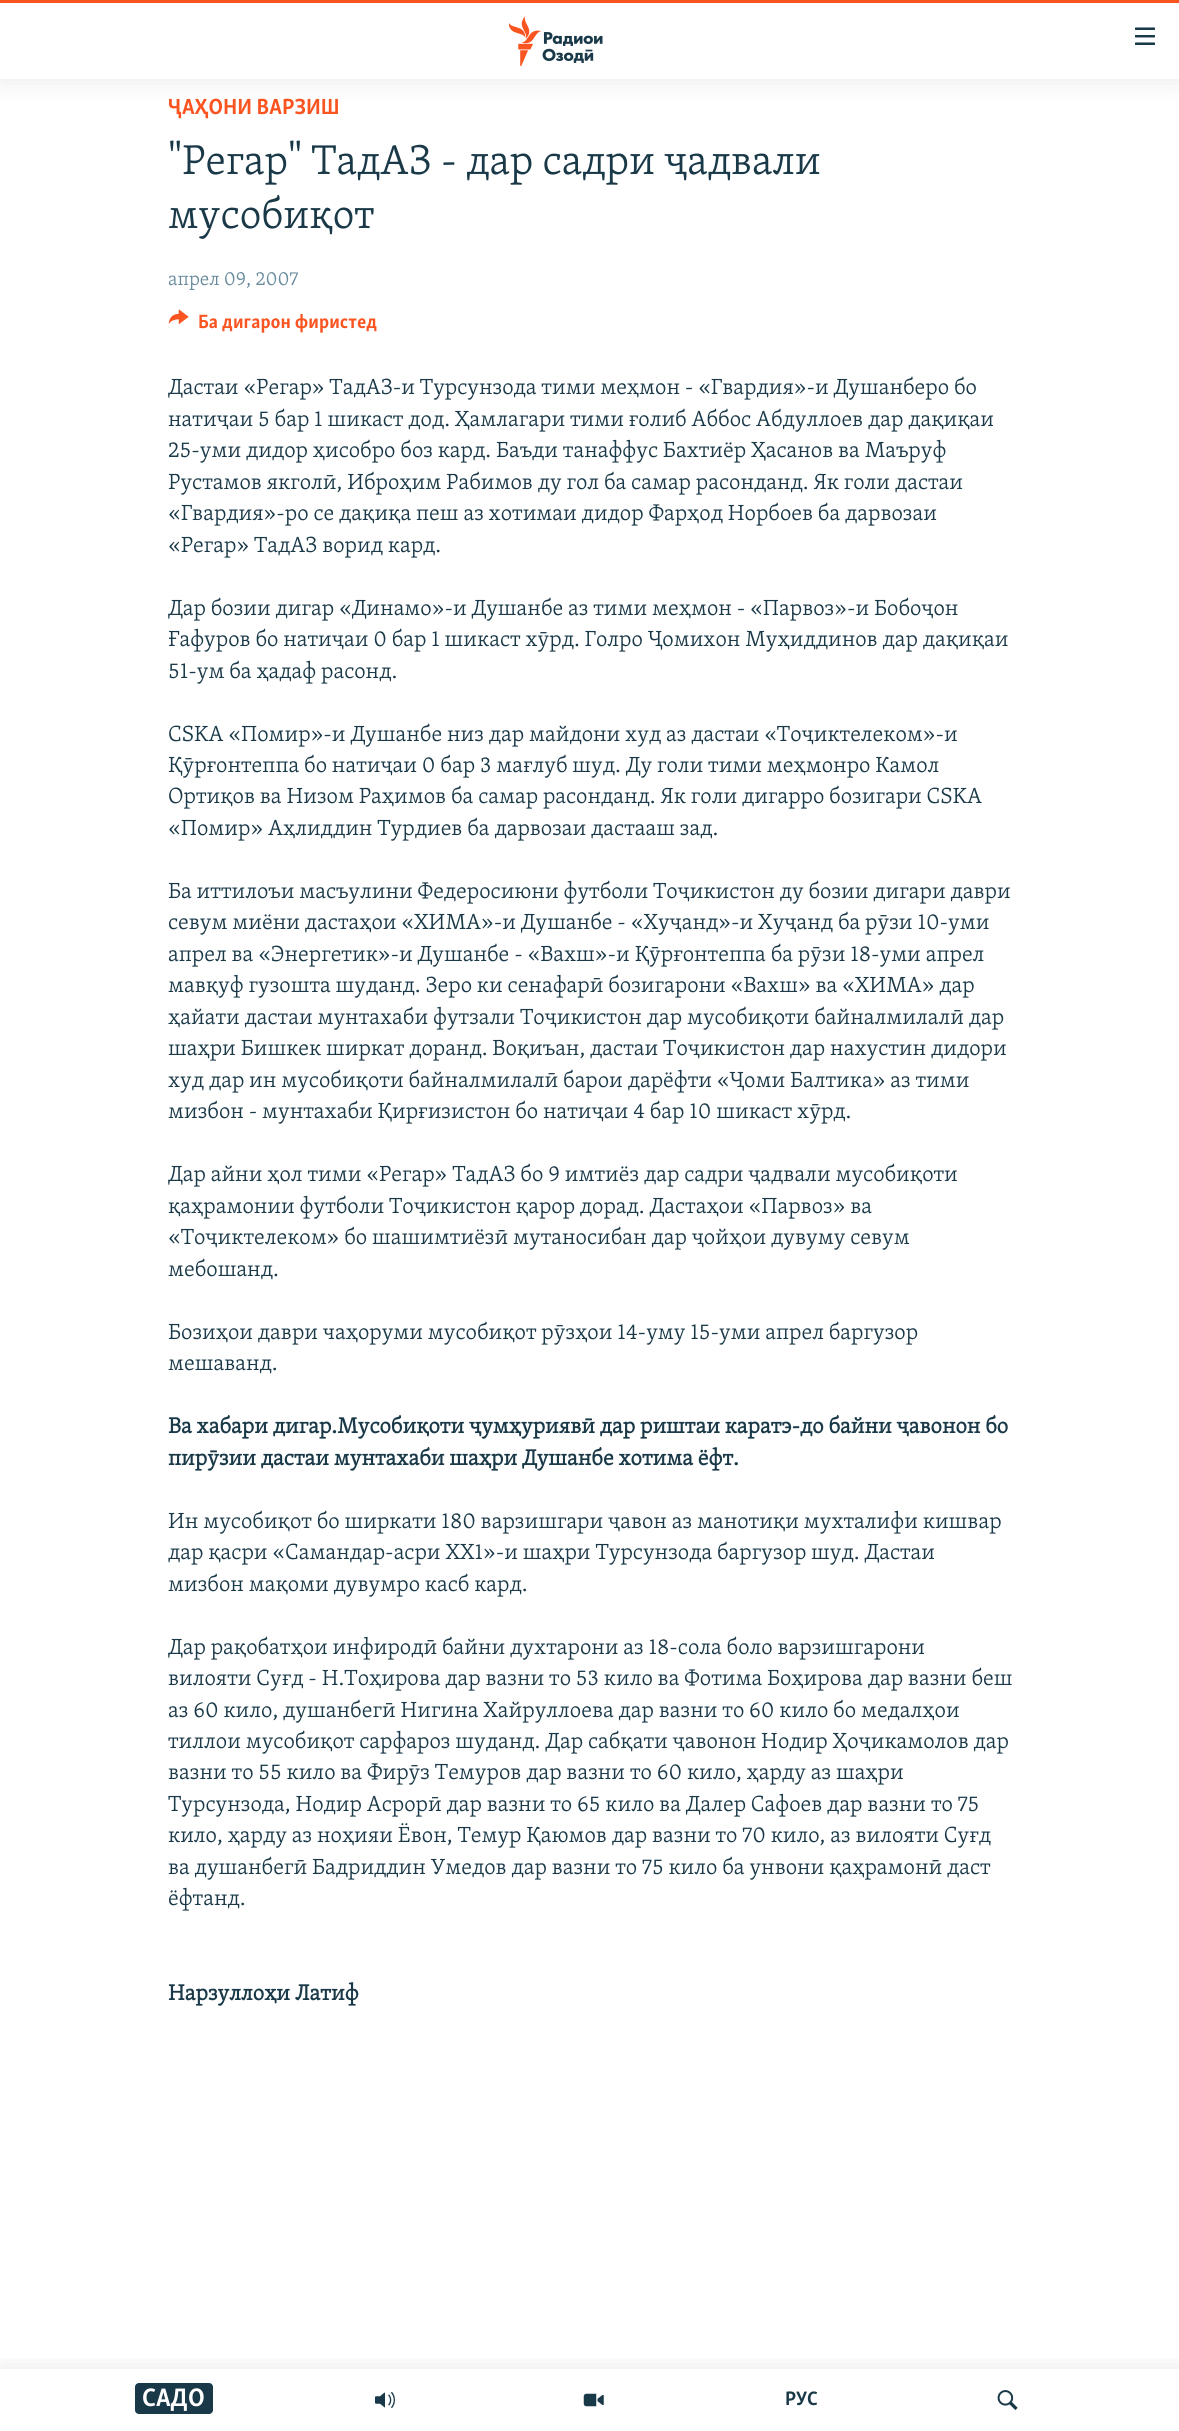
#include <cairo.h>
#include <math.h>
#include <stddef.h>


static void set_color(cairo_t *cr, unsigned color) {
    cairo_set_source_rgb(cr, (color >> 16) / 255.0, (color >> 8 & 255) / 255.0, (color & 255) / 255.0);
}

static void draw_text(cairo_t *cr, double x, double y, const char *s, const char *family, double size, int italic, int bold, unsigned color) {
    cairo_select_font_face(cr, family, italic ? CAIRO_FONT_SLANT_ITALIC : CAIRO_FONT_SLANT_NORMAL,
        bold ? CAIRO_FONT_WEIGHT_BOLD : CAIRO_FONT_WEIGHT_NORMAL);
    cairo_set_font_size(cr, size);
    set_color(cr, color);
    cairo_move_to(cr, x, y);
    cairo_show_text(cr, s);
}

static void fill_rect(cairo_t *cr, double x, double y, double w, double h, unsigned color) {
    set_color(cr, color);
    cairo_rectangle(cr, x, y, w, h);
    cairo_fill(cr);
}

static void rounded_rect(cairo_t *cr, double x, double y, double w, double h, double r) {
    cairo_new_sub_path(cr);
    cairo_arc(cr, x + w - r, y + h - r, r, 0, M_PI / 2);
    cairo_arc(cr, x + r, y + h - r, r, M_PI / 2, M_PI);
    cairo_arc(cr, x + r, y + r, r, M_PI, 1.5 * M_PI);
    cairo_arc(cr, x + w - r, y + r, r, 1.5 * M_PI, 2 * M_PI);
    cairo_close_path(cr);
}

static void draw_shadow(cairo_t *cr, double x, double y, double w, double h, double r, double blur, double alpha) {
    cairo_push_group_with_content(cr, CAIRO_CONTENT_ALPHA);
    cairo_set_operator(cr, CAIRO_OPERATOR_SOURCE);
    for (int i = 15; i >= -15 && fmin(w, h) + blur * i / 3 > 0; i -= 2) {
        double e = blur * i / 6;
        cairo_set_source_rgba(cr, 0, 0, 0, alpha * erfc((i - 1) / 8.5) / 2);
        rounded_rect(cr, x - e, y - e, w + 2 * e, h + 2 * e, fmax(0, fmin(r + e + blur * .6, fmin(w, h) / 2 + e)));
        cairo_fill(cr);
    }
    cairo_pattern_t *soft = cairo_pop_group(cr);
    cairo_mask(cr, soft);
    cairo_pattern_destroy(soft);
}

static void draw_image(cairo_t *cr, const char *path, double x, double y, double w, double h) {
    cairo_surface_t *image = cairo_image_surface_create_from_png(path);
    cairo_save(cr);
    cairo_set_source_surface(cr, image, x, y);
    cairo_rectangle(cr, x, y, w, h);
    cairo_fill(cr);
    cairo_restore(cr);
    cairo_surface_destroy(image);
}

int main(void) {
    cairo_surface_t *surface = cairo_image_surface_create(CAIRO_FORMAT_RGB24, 1179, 2431);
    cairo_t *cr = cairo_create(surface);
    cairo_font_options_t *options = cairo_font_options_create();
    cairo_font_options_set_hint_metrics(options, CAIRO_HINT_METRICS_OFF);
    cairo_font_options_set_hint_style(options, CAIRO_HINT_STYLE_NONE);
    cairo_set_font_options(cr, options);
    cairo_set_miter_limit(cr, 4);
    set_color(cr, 0xFFFFFF);
    cairo_paint(cr);
    draw_text(cr, 168, 114, "ҶАҲОНИ ВАРЗИШ", "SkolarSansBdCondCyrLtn", 22.5, 0, 1, 0xFA5420);
    draw_text(cr, 168, 174, "\"Регар\" ТадАЗ - дар садри ҷадвали", "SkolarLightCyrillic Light", 42.75, 0, 0, 0x1A3948);
    draw_text(cr, 168, 228, "мусобиқот", "SkolarLightCyrillic Light", 42.75, 0, 0, 0x1A3948);
    draw_text(cr, 168, 285, "апрел 09, 2007", "SkolarLightCyrillic Light", 19.75, 0, 0, 0x678A9B);
    draw_image(cr, "assets/img1.png", 168, 309, 21, 16);
    draw_text(cr, 198, 328, "Ба дигарон фиристед", "SkolarSansBdCondCyrLtn", 19.75, 0, 1, 0xFA5420);
    draw_text(cr, 168, 394, "Дастаи «Регар» ТадАЗ-и Турсунзода тими меҳмон - «Гвардия»-и Душанберо бо", "SkolarLightCyrillic Light", 22.5, 0, 0, 0x1A3948);
    draw_text(cr, 168, 426, "натиҷаи 5 бар 1 шикаст дод. Ҳамлагари тими ғолиб Аббос Абдуллоев дар дақиқаи", "SkolarLightCyrillic Light", 22.5, 0, 0, 0x1A3948);
    draw_text(cr, 168, 457, "25-уми дидор ҳисобро боз кард. Баъди танаффус Бахтиёр Ҳасанов ва Маъруф", "SkolarLightCyrillic Light", 22.5, 0, 0, 0x1A3948);
    draw_text(cr, 168, 489, "Рустамов якголӣ, Иброҳим Рабимов ду гол ба самар расонданд. Як голи дастаи", "SkolarLightCyrillic Light", 22.5, 0, 0, 0x1A3948);
    draw_text(cr, 168, 520, "«Гвардия»-ро се дақиқа пеш аз хотимаи дидор Фарҳод Норбоев ба дарвозаи", "SkolarLightCyrillic Light", 22.5, 0, 0, 0x1A3948);
    draw_text(cr, 168, 552, "«Регар» ТадАЗ ворид кард.", "SkolarLightCyrillic Light", 22.5, 0, 0, 0x1A3948);
    draw_text(cr, 168, 615, "Дар бозии дигар «Динамо»-и Душанбе аз тими меҳмон - «Парвоз»-и Бобоҷон", "SkolarLightCyrillic Light", 22.5, 0, 0, 0x1A3948);
    draw_text(cr, 168, 646, "Ғафуров бо натиҷаи 0 бар 1 шикаст хӯрд. Голро Ҷомихон Муҳиддинов дар дақиқаи", "SkolarLightCyrillic Light", 22.5, 0, 0, 0x1A3948);
    draw_text(cr, 168, 678, "51-ум ба ҳадаф расонд.", "SkolarLightCyrillic Light", 22.5, 0, 0, 0x1A3948);
    draw_text(cr, 168, 741, "CSKA «Помир»-и Душанбе низ дар майдони худ аз дастаи «Тоҷиктелеком»-и", "SkolarLightCyrillic Light", 22.5, 0, 0, 0x1A3948);
    draw_text(cr, 168, 772, "Қӯрғонтеппа бо натиҷаи 0 бар 3 мағлуб шуд. Ду голи тими меҳмонро Камол", "SkolarLightCyrillic Light", 22.5, 0, 0, 0x1A3948);
    draw_text(cr, 168, 803, "Ортиқов ва Низом Раҳимов ба самар расонданд. Як голи дигарро бозигари CSKA", "SkolarLightCyrillic Light", 22.5, 0, 0, 0x1A3948);
    draw_text(cr, 168, 835, "«Помир» Аҳлиддин Турдиев ба дарвозаи дастааш зад.", "SkolarLightCyrillic Light", 22.5, 0, 0, 0x1A3948);
    draw_text(cr, 168, 898, "Ба иттилоъи масъулини Федеросиюни футболи Тоҷикистон ду бозии дигари даври", "SkolarLightCyrillic Light", 22.5, 0, 0, 0x1A3948);
    draw_text(cr, 168, 929, "севум миёни дастаҳои «ХИМА»-и Душанбе - «Хуҷанд»-и Хуҷанд ба рӯзи 10-уми", "SkolarLightCyrillic Light", 22.5, 0, 0, 0x1A3948);
    draw_text(cr, 168, 961, "апрел ва «Энергетик»-и Душанбе - «Вахш»-и Қӯрғонтеппа ба рӯзи 18-уми апрел", "SkolarLightCyrillic Light", 22.5, 0, 0, 0x1A3948);
    draw_text(cr, 168, 992, "мавқуф гузошта шуданд. Зеро ки сенафарӣ бозигарони «Вахш» ва «ХИМА» дар", "SkolarLightCyrillic Light", 22.5, 0, 0, 0x1A3948);
    draw_text(cr, 168, 1024, "ҳайати дастаи мунтахаби футзали Тоҷикистон дар мусобиқоти байналмилалӣ дар", "SkolarLightCyrillic Light", 22.5, 0, 0, 0x1A3948);
    draw_text(cr, 168, 1055, "шаҳри Бишкек ширкат доранд. Воқиъан, дастаи Тоҷикистон дар нахустин дидори", "SkolarLightCyrillic Light", 22.5, 0, 0, 0x1A3948);
    draw_text(cr, 168, 1087, "худ дар ин мусобиқоти байналмилалӣ барои дарёфти «Ҷоми Балтика» аз тими", "SkolarLightCyrillic Light", 22.5, 0, 0, 0x1A3948);
    draw_text(cr, 168, 1118, "мизбон - мунтахаби Қирғизистон бо натиҷаи 4 бар 10 шикаст хӯрд.", "SkolarLightCyrillic Light", 22.5, 0, 0, 0x1A3948);
    draw_text(cr, 168, 1181, "Дар айни ҳол тими «Регар» ТадАЗ бо 9 имтиёз дар садри ҷадвали мусобиқоти", "SkolarLightCyrillic Light", 22.5, 0, 0, 0x1A3948);
    draw_text(cr, 168, 1213, "қаҳрамонии футболи Тоҷикистон қарор дорад. Дастаҳои «Парвоз» ва", "SkolarLightCyrillic Light", 22.5, 0, 0, 0x1A3948);
    draw_text(cr, 168, 1244, "«Тоҷиктелеком» бо шашимтиёзӣ мутаносибан дар ҷойҳои дувуму севум", "SkolarLightCyrillic Light", 22.5, 0, 0, 0x1A3948);
    draw_text(cr, 168, 1276, "мебошанд.", "SkolarLightCyrillic Light", 22.5, 0, 0, 0x1A3948);
    draw_text(cr, 168, 1339, "Бозиҳои даври чаҳоруми мусобиқот рӯзҳои 14-уму 15-уми апрел баргузор", "SkolarLightCyrillic Light", 22.5, 0, 0, 0x1A3948);
    draw_text(cr, 168, 1370, "мешаванд.", "SkolarLightCyrillic Light", 22.5, 0, 0, 0x1A3948);
    draw_text(cr, 168, 1433, "Ва хабари дигар.Мусобиқоти ҷумҳуриявӣ дар риштаи каратэ-до байни ҷавонон бо", "SkolarLightCyrillic", 22.5, 0, 1, 0x1A3948);
    draw_text(cr, 168, 1465, "пирӯзии дастаи мунтахаби шаҳри Душанбе хотима ёфт.", "SkolarLightCyrillic", 22.5, 0, 1, 0x1A3948);
    draw_text(cr, 168, 1528, "Ин мусобиқот бо ширкати 180 варзишгари ҷавон аз манотиқи мухталифи кишвар", "SkolarLightCyrillic Light", 22.5, 0, 0, 0x1A3948);
    draw_text(cr, 168, 1559, "дар қасри «Самандар-асри ХХ1»-и шаҳри Турсунзода баргузор шуд. Дастаи", "SkolarLightCyrillic Light", 22.5, 0, 0, 0x1A3948);
    draw_text(cr, 168, 1591, "мизбон мақоми дувумро касб кард.", "SkolarLightCyrillic Light", 22.5, 0, 0, 0x1A3948);
    draw_text(cr, 168, 1654, "Дар рақобатҳои инфиродӣ байни духтарони аз 18-сола боло варзишгарони", "SkolarLightCyrillic Light", 22.5, 0, 0, 0x1A3948);
    draw_text(cr, 168, 1685, "вилояти Суғд - Н.Тоҳирова дар вазни то 53 кило ва Фотима Боҳирова дар вазни беш", "SkolarLightCyrillic Light", 22.5, 0, 0, 0x1A3948);
    draw_text(cr, 168, 1717, "аз 60 кило, душанбегӣ Нигина Хайруллоева дар вазни то 60 кило бо медалҳои", "SkolarLightCyrillic Light", 22.5, 0, 0, 0x1A3948);
    draw_text(cr, 168, 1748, "тиллои мусобиқот сарфароз шуданд. Дар сабқати ҷавонон Нодир Ҳоҷикамолов дар", "SkolarLightCyrillic Light", 22.5, 0, 0, 0x1A3948);
    draw_text(cr, 168, 1779, "вазни то 55 кило ва Фирӯз Темуров дар вазни то 60 кило, ҳарду аз шаҳри", "SkolarLightCyrillic Light", 22.5, 0, 0, 0x1A3948);
    draw_text(cr, 168, 1811, "Турсунзода, Нодир Асрорӣ дар вазни то 65 кило ва Далер Сафоев дар вазни то 75", "SkolarLightCyrillic Light", 22.5, 0, 0, 0x1A3948);
    draw_text(cr, 168, 1842, "кило, ҳарду аз ноҳияи Ёвон, Темур Қаюмов дар вазни то 70 кило, аз вилояти Суғд", "SkolarLightCyrillic Light", 22.5, 0, 0, 0x1A3948);
    draw_text(cr, 168, 1874, "ва душанбегӣ Бадриддин Умедов дар вазни то 75 кило ба унвони қаҳрамонӣ даст", "SkolarLightCyrillic Light", 22.5, 0, 0, 0x1A3948);
    draw_text(cr, 168, 1905, "ёфтанд.", "SkolarLightCyrillic Light", 22.5, 0, 0, 0x1A3948);
    draw_text(cr, 168, 2000, "Нарзуллоҳи Латиф", "SkolarLightCyrillic", 22.5, 0, 1, 0x1A3948);
    set_color(cr, 0x000000);
    draw_shadow(cr, 0, 0, 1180, 79, 0, 12.5, 0.1);
    fill_rect(cr, 0, 3, 1179, 76, 0xFFFFFF);
    fill_rect(cr, 0, 0, 1179, 3, 0xFA5420);
    draw_image(cr, "assets/img2.png", 509, 16, 94, 50);
    draw_image(cr, "assets/img3.png", 1135, 27, 20, 18);
    cairo_save(cr);
    cairo_rectangle(cr, 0, 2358, 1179, 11);
    cairo_clip(cr);
    set_color(cr, 0x000000);
    draw_shadow(cr, 0, 2369, 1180, 62, 0, 12.5, 0.1);
    cairo_restore(cr);
    set_color(cr, 0x1A3948);
    rounded_rect(cr, 135, 2383, 78, 31, 4);
    cairo_fill(cr);
    draw_text(cr, 142, 2406, "САДО", "SkolarSansBdCondCyrLtn", 26, 0, 1, 0xFFFFFF);
    draw_image(cr, "assets/img4.png", 375, 2392, 20, 16);
    draw_image(cr, "assets/img5.png", 583, 2393, 21, 14);
    draw_text(cr, 785, 2405, "РУС", "SkolarSansBdCondCyrLtn", 20, 0, 1, 0x1A3948);
    draw_image(cr, "assets/img6.png", 997, 2390, 21, 20);
    cairo_surface_write_to_png(surface, "output.png");
    cairo_font_options_destroy(options);
    cairo_destroy(cr);
    cairo_surface_destroy(surface);
    return 0;
}
